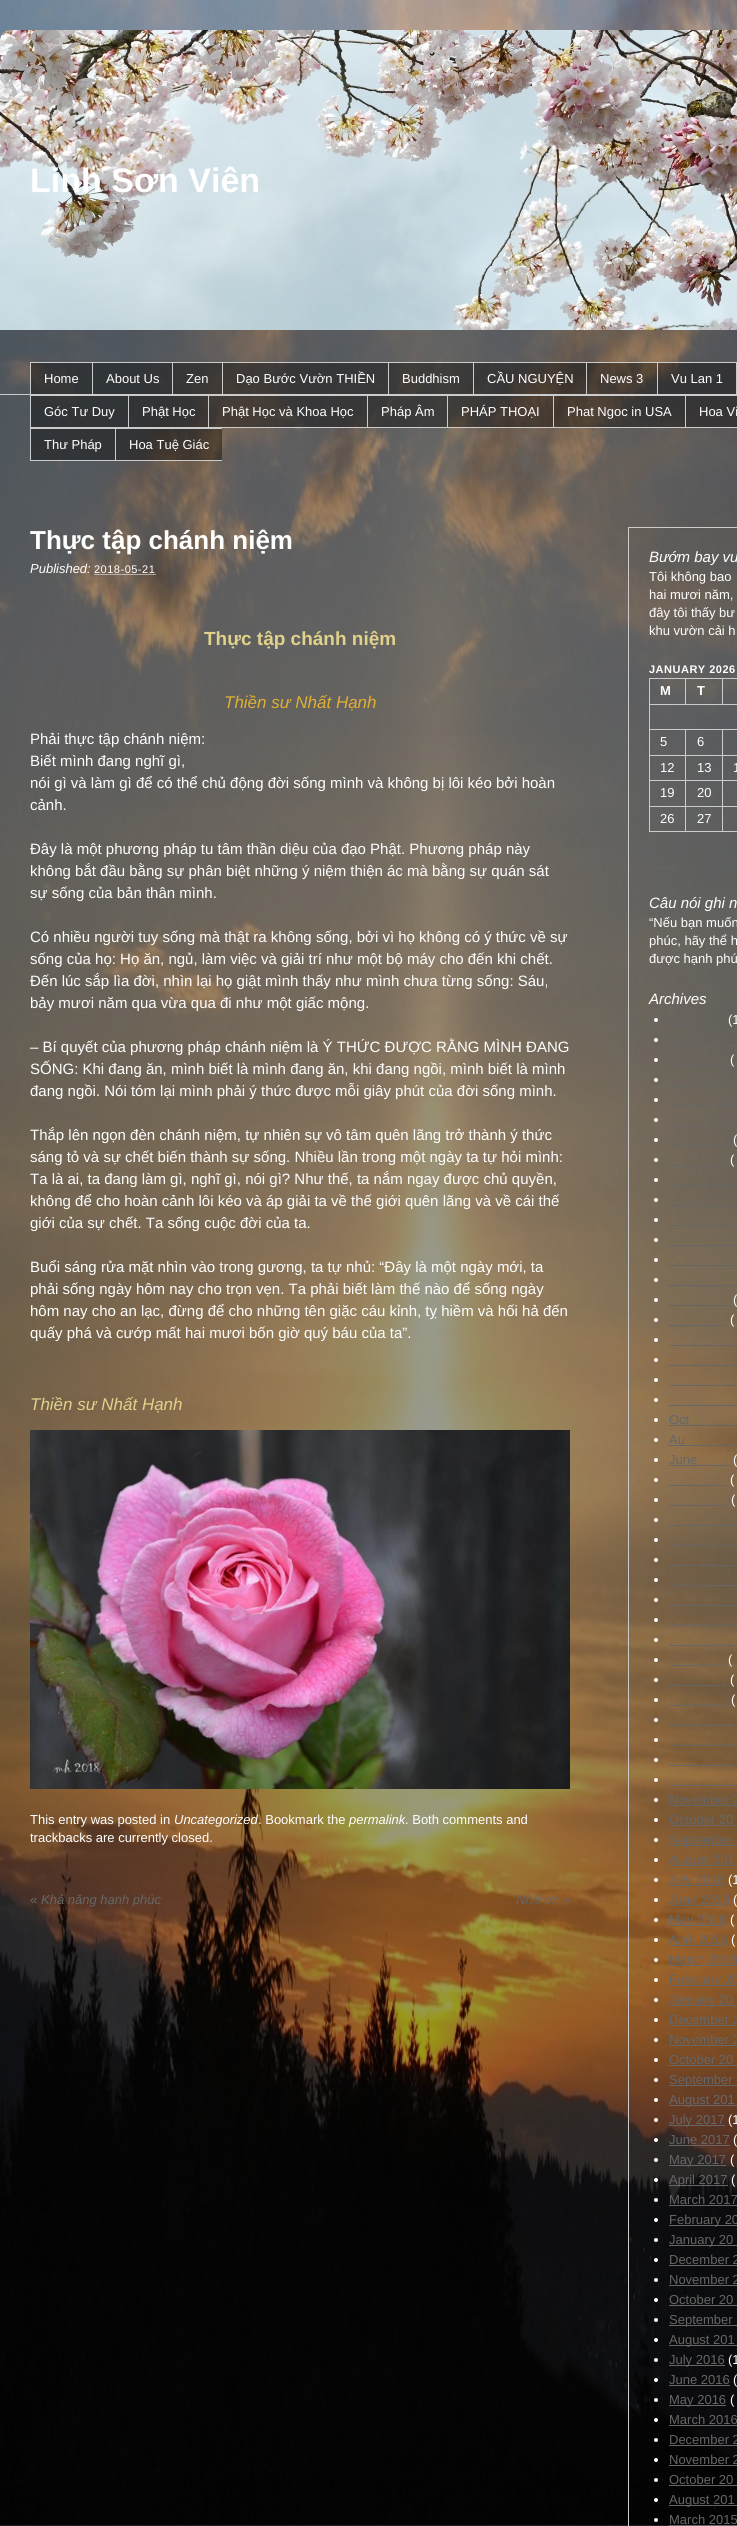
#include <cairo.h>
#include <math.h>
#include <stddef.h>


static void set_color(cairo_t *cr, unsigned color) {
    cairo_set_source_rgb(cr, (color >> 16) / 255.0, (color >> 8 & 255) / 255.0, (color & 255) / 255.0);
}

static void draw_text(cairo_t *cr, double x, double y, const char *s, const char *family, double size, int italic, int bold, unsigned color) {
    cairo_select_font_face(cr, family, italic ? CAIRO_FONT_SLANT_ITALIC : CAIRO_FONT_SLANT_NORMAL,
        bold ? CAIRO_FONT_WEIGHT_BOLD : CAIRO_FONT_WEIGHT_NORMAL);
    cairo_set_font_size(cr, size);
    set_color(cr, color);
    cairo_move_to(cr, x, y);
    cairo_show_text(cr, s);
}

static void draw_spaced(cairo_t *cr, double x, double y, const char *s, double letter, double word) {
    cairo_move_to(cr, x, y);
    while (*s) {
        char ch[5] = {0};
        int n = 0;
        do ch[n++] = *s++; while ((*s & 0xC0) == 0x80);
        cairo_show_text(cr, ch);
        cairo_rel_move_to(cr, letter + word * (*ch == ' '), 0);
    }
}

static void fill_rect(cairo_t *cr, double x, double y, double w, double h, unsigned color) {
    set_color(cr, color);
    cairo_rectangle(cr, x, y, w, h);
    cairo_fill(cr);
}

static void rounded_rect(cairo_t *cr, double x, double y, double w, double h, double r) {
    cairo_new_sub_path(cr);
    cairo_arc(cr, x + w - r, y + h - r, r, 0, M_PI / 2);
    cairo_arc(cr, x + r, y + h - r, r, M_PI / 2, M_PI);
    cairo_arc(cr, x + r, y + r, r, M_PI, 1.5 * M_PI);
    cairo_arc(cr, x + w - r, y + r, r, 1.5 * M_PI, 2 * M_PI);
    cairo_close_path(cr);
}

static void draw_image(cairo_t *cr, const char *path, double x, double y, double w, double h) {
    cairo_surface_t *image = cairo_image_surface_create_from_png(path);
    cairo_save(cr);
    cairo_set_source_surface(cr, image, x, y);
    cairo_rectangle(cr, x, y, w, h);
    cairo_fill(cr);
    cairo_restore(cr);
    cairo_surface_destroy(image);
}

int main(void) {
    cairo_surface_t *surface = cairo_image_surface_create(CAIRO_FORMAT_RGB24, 737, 2526);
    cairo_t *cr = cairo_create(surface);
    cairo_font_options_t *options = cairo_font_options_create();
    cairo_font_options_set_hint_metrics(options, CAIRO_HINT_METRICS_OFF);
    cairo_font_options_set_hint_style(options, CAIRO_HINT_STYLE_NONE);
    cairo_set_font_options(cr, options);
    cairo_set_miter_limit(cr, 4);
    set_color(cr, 0xFFFFFF);
    cairo_paint(cr);
    draw_image(cr, "assets/img1.png", 0, 0, 737, 2526);
    cairo_set_source_rgba(cr, 0, 0, 0, 0.4);
    rounded_rect(cr, 0, 30, 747, 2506, 10);
    cairo_fill(cr);
    draw_image(cr, "assets/img2.png", 0, 30, 737, 300);
    draw_text(cr, 30, 192, "Linh Sơn Viên", "Liberation Sans", 34, 0, 1, 0xFFFFFF);
    draw_text(cr, 159, 415, "rin", "Liberation Sans", 13, 1, 0, 0x666666);
    fill_rect(cr, 0, 394, 736, 1, 0xCCCCCC);
    cairo_set_source_rgba(cr, 0, 0, 0, 0.4);
    cairo_rectangle(cr, 31, 363, 61, 31);
    cairo_fill(cr);
    fill_rect(cr, 30, 362, 706, 1, 0xCCCCCC);
    fill_rect(cr, 30, 362, 1, 33, 0xCCCCCC);
    draw_text(cr, 44, 383, "Home", "Liberation Sans", 13, 0, 0, 0xFFFFFF);
    cairo_set_source_rgba(cr, 0, 0, 0, 0.4);
    cairo_rectangle(cr, 93, 363, 79, 31);
    cairo_fill(cr);
    fill_rect(cr, 92, 362, 1, 33, 0xCCCCCC);
    draw_text(cr, 106, 383, "About Us", "Liberation Sans", 13, 0, 0, 0xFFFFFF);
    cairo_set_source_rgba(cr, 0, 0, 0, 0.4);
    cairo_rectangle(cr, 173, 363, 49, 31);
    cairo_fill(cr);
    fill_rect(cr, 172, 362, 1, 33, 0xCCCCCC);
    draw_text(cr, 186, 383, "Zen", "Liberation Sans", 13, 0, 0, 0xFFFFFF);
    cairo_set_source_rgba(cr, 0, 0, 0, 0.4);
    cairo_rectangle(cr, 223, 363, 165, 31);
    cairo_fill(cr);
    fill_rect(cr, 222, 362, 1, 33, 0xCCCCCC);
    draw_text(cr, 236, 383, "Dạo Bước Vườn THIỀN", "Liberation Sans", 13, 0, 0, 0xFFFFFF);
    cairo_set_source_rgba(cr, 0, 0, 0, 0.4);
    cairo_rectangle(cr, 389, 363, 84, 31);
    cairo_fill(cr);
    fill_rect(cr, 388, 362, 1, 33, 0xCCCCCC);
    draw_text(cr, 402, 383, "Buddhism", "Liberation Sans", 13, 0, 0, 0xFFFFFF);
    cairo_set_source_rgba(cr, 0, 0, 0, 0.4);
    cairo_rectangle(cr, 474, 363, 112, 31);
    cairo_fill(cr);
    fill_rect(cr, 473, 362, 1, 33, 0xCCCCCC);
    draw_text(cr, 487, 383, "CẦU NGUYỆN", "Liberation Sans", 13, 0, 0, 0xFFFFFF);
    cairo_set_source_rgba(cr, 0, 0, 0, 0.4);
    cairo_rectangle(cr, 587, 363, 70, 31);
    cairo_fill(cr);
    fill_rect(cr, 586, 362, 1, 33, 0xCCCCCC);
    draw_text(cr, 600, 383, "News 3", "Liberation Sans", 13, 0, 0, 0xFFFFFF);
    cairo_set_source_rgba(cr, 0, 0, 0, 0.4);
    cairo_rectangle(cr, 658, 363, 78, 31);
    cairo_fill(cr);
    fill_rect(cr, 657, 362, 1, 33, 0xCCCCCC);
    draw_text(cr, 671, 383, "Vu Lan 1", "Liberation Sans", 13, 0, 0, 0xFFFFFF);
    fill_rect(cr, 736, 362, 1, 33, 0xCCCCCC);
    cairo_set_source_rgba(cr, 0, 0, 0, 0.4);
    cairo_rectangle(cr, 31, 396, 97, 31);
    cairo_fill(cr);
    fill_rect(cr, 30, 395, 707, 1, 0xCCCCCC);
    fill_rect(cr, 30, 427, 707, 1, 0xCCCCCC);
    fill_rect(cr, 30, 395, 1, 33, 0xCCCCCC);
    draw_text(cr, 44, 416, "Góc Tư Duy", "Liberation Sans", 13, 0, 0, 0xFFFFFF);
    cairo_set_source_rgba(cr, 0, 0, 0, 0.4);
    cairo_rectangle(cr, 129, 396, 79, 31);
    cairo_fill(cr);
    fill_rect(cr, 128, 395, 1, 33, 0xCCCCCC);
    draw_text(cr, 142, 416, "Phật Học", "Liberation Sans", 13, 0, 0, 0xFFFFFF);
    cairo_set_source_rgba(cr, 0, 0, 0, 0.4);
    cairo_rectangle(cr, 209, 396, 158, 31);
    cairo_fill(cr);
    fill_rect(cr, 208, 395, 1, 33, 0xCCCCCC);
    draw_text(cr, 222, 416, "Phật Học và Khoa Học", "Liberation Sans", 13, 0, 0, 0xFFFFFF);
    cairo_set_source_rgba(cr, 0, 0, 0, 0.4);
    cairo_rectangle(cr, 368, 396, 79, 31);
    cairo_fill(cr);
    fill_rect(cr, 367, 395, 1, 33, 0xCCCCCC);
    draw_text(cr, 381, 416, "Pháp Âm", "Liberation Sans", 13, 0, 0, 0xFFFFFF);
    cairo_set_source_rgba(cr, 0, 0, 0, 0.4);
    cairo_rectangle(cr, 448, 396, 105, 31);
    cairo_fill(cr);
    fill_rect(cr, 447, 395, 1, 33, 0xCCCCCC);
    draw_text(cr, 461, 416, "PHÁP THOẠI", "Liberation Sans", 13, 0, 0, 0xFFFFFF);
    cairo_set_source_rgba(cr, 0, 0, 0, 0.4);
    cairo_rectangle(cr, 554, 396, 131, 31);
    cairo_fill(cr);
    fill_rect(cr, 553, 395, 1, 33, 0xCCCCCC);
    draw_text(cr, 567, 416, "Phat Ngoc in USA", "Liberation Sans", 13, 0, 0, 0xFFFFFF);
    cairo_set_source_rgba(cr, 0, 0, 0, 0.4);
    cairo_rectangle(cr, 686, 396, 51, 31);
    cairo_fill(cr);
    fill_rect(cr, 685, 395, 1, 33, 0xCCCCCC);
    draw_text(cr, 699, 416, "Hoa Vi", "Liberation Sans", 13, 0, 0, 0xFFFFFF);
    cairo_set_source_rgba(cr, 0, 0, 0, 0.4);
    cairo_rectangle(cr, 31, 429, 84, 31);
    cairo_fill(cr);
    fill_rect(cr, 30, 428, 192, 1, 0xCCCCCC);
    fill_rect(cr, 30, 460, 192, 1, 0xCCCCCC);
    fill_rect(cr, 30, 428, 1, 33, 0xCCCCCC);
    draw_text(cr, 44, 449, "Thư Pháp", "Liberation Sans", 13, 0, 0, 0xFFFFFF);
    cairo_set_source_rgba(cr, 0, 0, 0, 0.4);
    cairo_rectangle(cr, 116, 429, 106, 31);
    cairo_fill(cr);
    fill_rect(cr, 115, 428, 1, 33, 0xCCCCCC);
    draw_text(cr, 129, 449, "Hoa Tuệ Giác", "Liberation Sans", 13, 0, 0, 0xFFFFFF);
    draw_text(cr, 30, 549, "Thực tập chánh niệm", "Liberation Sans", 26, 0, 1, 0xFFFFFF);
    draw_text(cr, 30, 573, "Published:", "Liberation Sans", 13, 1, 0, 0xFFFFFF);
    cairo_select_font_face(cr, "Liberation Sans", CAIRO_FONT_SLANT_NORMAL, CAIRO_FONT_WEIGHT_NORMAL);
    cairo_set_font_size(cr, 11);
    draw_spaced(cr, 94, 573, "2018-05-21", 0.5, 0);
    cairo_new_path(cr);
    cairo_move_to(cr, 94.5, 574.5);
    cairo_line_to(cr, 156, 574.5);
    cairo_set_line_width(cr, 1);
    cairo_set_dash(cr, (double[]){1, 1}, 2, 0);
    cairo_stroke(cr);
    draw_text(cr, 204, 645, "Thực tập chánh niệm", "Liberation Sans", 19, 0, 1, 0xE0D18B);
    draw_text(cr, 224, 708, "Thiền sư Nhất Hạnh", "Liberation Sans", 17, 1, 0, 0xE0AF34);
    draw_text(cr, 30, 744, "Phải thực tập chánh niệm:", "Liberation Sans", 15, 0, 0, 0xFFFFFF);
    draw_text(cr, 30, 766, "Biết mình đang nghĩ gì,", "Liberation Sans", 15, 0, 0, 0xFFFFFF);
    draw_text(cr, 30, 788, "nói gì và làm gì để có thể chủ động đời sống mình và không bị lôi kéo bởi hoàn", "Liberation Sans", 15, 0, 0, 0xFFFFFF);
    draw_text(cr, 30, 810, "cảnh.", "Liberation Sans", 15, 0, 0, 0xFFFFFF);
    draw_text(cr, 30, 854, "Đây là một phương pháp tu tâm thần diệu của đạo Phật. Phương pháp này", "Liberation Sans", 15, 0, 0, 0xFFFFFF);
    draw_text(cr, 30, 876, "không bắt đầu bằng sự phân biệt những ý niệm thiện ác mà bằng sự quán sát", "Liberation Sans", 15, 0, 0, 0xFFFFFF);
    draw_text(cr, 30, 898, "sự sống của bản thân mình.", "Liberation Sans", 15, 0, 0, 0xFFFFFF);
    draw_text(cr, 30, 942, "Có nhiều người tuy sống mà thật ra không sống, bởi vì họ không có ý thức về sự", "Liberation Sans", 15, 0, 0, 0xFFFFFF);
    draw_text(cr, 30, 964, "sống của họ: Họ ăn, ngủ, làm việc và giải trí như một bộ máy cho đến khi chết.", "Liberation Sans", 15, 0, 0, 0xFFFFFF);
    draw_text(cr, 30, 986, "Đến lúc sắp lìa đời, nhìn lại họ giật mình thấy như mình chưa từng sống: Sáu,", "Liberation Sans", 15, 0, 0, 0xFFFFFF);
    draw_text(cr, 30, 1008, "bảy mươi năm qua vừa qua đi như một giấc mộng.", "Liberation Sans", 15, 0, 0, 0xFFFFFF);
    draw_text(cr, 30, 1052, "– Bí quyết của phương pháp chánh niệm là Ý THỨC ĐƯỢC RẰNG MÌNH ĐANG", "Liberation Sans", 15, 0, 0, 0xFFFFFF);
    draw_text(cr, 30, 1074, "SỐNG: Khi đang ăn, mình biết là mình đang ăn, khi đang ngồi, mình biết là mình", "Liberation Sans", 15, 0, 0, 0xFFFFFF);
    draw_text(cr, 30, 1096, "đang ngồi. Nói tóm lại mình phải ý thức được mỗi giây phút của đời sống mình.", "Liberation Sans", 15, 0, 0, 0xFFFFFF);
    draw_text(cr, 30, 1140, "Thắp lên ngọn đèn chánh niệm, tự nhiên sự vô tâm quên lãng trở thành ý thức", "Liberation Sans", 15, 0, 0, 0xFFFFFF);
    draw_text(cr, 30, 1162, "sáng tỏ và sự chết biến thành sự sống. Nhiều lần trong một ngày ta tự hỏi mình:", "Liberation Sans", 15, 0, 0, 0xFFFFFF);
    draw_text(cr, 30, 1184, "Ta là ai, ta đang làm gì, nghĩ gì, nói gì? Như thế, ta nắm ngay được chủ quyền,", "Liberation Sans", 15, 0, 0, 0xFFFFFF);
    draw_text(cr, 30, 1206, "không để cho hoàn cảnh lôi kéo và áp giải ta về thế giới quên lãng và về cái thế", "Liberation Sans", 15, 0, 0, 0xFFFFFF);
    draw_text(cr, 30, 1228, "giới của sự chết. Ta sống cuộc đời của ta.", "Liberation Sans", 15, 0, 0, 0xFFFFFF);
    draw_text(cr, 30, 1272, "Buổi sáng rửa mặt nhìn vào trong gương, ta tự nhủ: “Đây là một ngày mới, ta", "Liberation Sans", 15, 0, 0, 0xFFFFFF);
    draw_text(cr, 30, 1294, "phải sống ngày hôm nay cho trọn vẹn. Ta phải biết làm thế nào để sống ngày", "Liberation Sans", 15, 0, 0, 0xFFFFFF);
    draw_text(cr, 30, 1316, "hôm nay cho an lạc, đừng để cho những tên giặc cáu kỉnh, tỵ hiềm và hối hả đến", "Liberation Sans", 15, 0, 0, 0xFFFFFF);
    draw_text(cr, 30, 1338, "quấy phá và cướp mất hai mươi bốn giờ quý báu của ta”.", "Liberation Sans", 15, 0, 0, 0xFFFFFF);
    draw_text(cr, 30, 1410, "Thiền sư Nhất Hạnh", "Liberation Sans", 17, 1, 0, 0xE0D18B);
    draw_image(cr, "assets/img3.png", 30, 1430, 540, 359);
    draw_text(cr, 30, 1824, "This entry was posted in", "Liberation Sans", 13, 0, 0, 0xFFFFFF);
    draw_text(cr, 174, 1824, "Uncategorized", "Liberation Sans", 13, 1, 0, 0xFFFFFF);
    draw_text(cr, 258, 1824, ". Bookmark the", "Liberation Sans", 13, 0, 0, 0xFFFFFF);
    draw_text(cr, 349, 1824, "permalink", "Liberation Sans", 13, 1, 0, 0xFFFFFF);
    draw_text(cr, 405, 1824, ". Both comments and", "Liberation Sans", 13, 0, 0, 0xFFFFFF);
    draw_text(cr, 30, 1842, "trackbacks are currently closed.", "Liberation Sans", 13, 0, 0, 0xFFFFFF);
    draw_text(cr, 30, 1904, "«", "Liberation Sans", 13, 0, 0, 0x666666);
    draw_text(cr, 41, 1904, "Khả năng hạnh phúc", "Liberation Sans", 13, 1, 0, 0x666666);
    draw_text(cr, 516, 1904, "Nhớ ơn", "Liberation Sans", 13, 1, 0, 0x666666);
    draw_text(cr, 563, 1904, "»", "Liberation Sans", 13, 0, 0, 0x666666);
    cairo_rectangle(cr, 628.5, 527.5, 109, 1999);
    set_color(cr, 0xCCCCCC);
    cairo_set_dash(cr, NULL, 0, 0);
    cairo_stroke(cr);
    draw_text(cr, 649, 562, "Bướm bay vư", "Liberation Sans", 15, 1, 0, 0xFFFFFF);
    draw_text(cr, 649, 581, "Tôi không bao", "Liberation Sans", 13, 0, 0, 0xFFFFFF);
    draw_text(cr, 649, 599, "hai mươi năm,", "Liberation Sans", 13, 0, 0, 0xFFFFFF);
    draw_text(cr, 649, 617, "đây tôi thấy bư", "Liberation Sans", 13, 0, 0, 0xFFFFFF);
    draw_text(cr, 649, 635, "khu vườn cải h", "Liberation Sans", 13, 0, 0, 0xFFFFFF);
    cairo_select_font_face(cr, "Liberation Sans", CAIRO_FONT_SLANT_NORMAL, CAIRO_FONT_WEIGHT_BOLD);
    cairo_set_font_size(cr, 11);
    draw_spaced(cr, 649, 673, "JANUARY 2026", 0.5, 0);
    fill_rect(cr, 649, 678, 88, 1, 0xCCCCCC);
    fill_rect(cr, 649, 704, 88, 1, 0xCCCCCC);
    fill_rect(cr, 649, 831, 88, 1, 0xCCCCCC);
    fill_rect(cr, 649, 704, 1, 128, 0xCCCCCC);
    fill_rect(cr, 649, 678, 1, 27, 0xCCCCCC);
    fill_rect(cr, 685, 678, 1, 27, 0xCCCCCC);
    draw_text(cr, 660, 695, "M", "Liberation Sans", 13, 0, 1, 0xFFFFFF);
    fill_rect(cr, 722, 678, 1, 27, 0xCCCCCC);
    draw_text(cr, 697, 695, "T", "Liberation Sans", 13, 0, 1, 0xFFFFFF);
    fill_rect(cr, 649, 729, 88, 1, 0xCCCCCC);
    fill_rect(cr, 649, 755, 88, 1, 0xCCCCCC);
    draw_text(cr, 660, 746, "5", "Liberation Sans", 13, 0, 0, 0xFFFFFF);
    draw_text(cr, 697, 746, "6", "Liberation Sans", 13, 0, 0, 0xFFFFFF);
    fill_rect(cr, 649, 780, 88, 1, 0xCCCCCC);
    draw_text(cr, 660, 772, "12", "Liberation Sans", 13, 0, 0, 0xFFFFFF);
    draw_text(cr, 697, 772, "13", "Liberation Sans", 13, 0, 0, 0xFFFFFF);
    draw_text(cr, 733, 772, "1", "Liberation Sans", 13, 0, 0, 0xFFFFFF);
    fill_rect(cr, 649, 806, 88, 1, 0xCCCCCC);
    draw_text(cr, 660, 797, "19", "Liberation Sans", 13, 0, 0, 0xFFFFFF);
    draw_text(cr, 697, 797, "20", "Liberation Sans", 13, 0, 0, 0xFFFFFF);
    fill_rect(cr, 685, 729, 1, 103, 0xCCCCCC);
    draw_text(cr, 660, 823, "26", "Liberation Sans", 13, 0, 0, 0xFFFFFF);
    fill_rect(cr, 722, 729, 1, 103, 0xCCCCCC);
    draw_text(cr, 697, 823, "27", "Liberation Sans", 13, 0, 0, 0xFFFFFF);
    fill_rect(cr, 649, 868, 27, 1, 0x666666);
    draw_text(cr, 649, 908, "Câu nói ghi n", "Liberation Sans", 15, 1, 0, 0xFFFFFF);
    draw_text(cr, 649, 927, "“Nếu bạn muốn", "Liberation Sans", 13, 0, 0, 0xFFFFFF);
    draw_text(cr, 649, 945, "phúc, hãy thể h", "Liberation Sans", 13, 0, 0, 0xFFFFFF);
    draw_text(cr, 649, 963, "được hạnh phú", "Liberation Sans", 13, 0, 0, 0xFFFFFF);
    draw_text(cr, 649, 1004, "Archives", "Liberation Sans", 15, 1, 0, 0xFFFFFF);
    cairo_new_path(cr);
    cairo_arc(cr, 656, 1020, 2, 0, 2 * M_PI);
    cairo_fill(cr);
    draw_text(cr, 728, 1024, "(1", "Liberation Sans", 13, 0, 0, 0xFFFFFF);
    fill_rect(cr, 669, 1025, 56, 1, 0x666666);
    set_color(cr, 0xFFFFFF);
    cairo_new_path(cr);
    cairo_arc(cr, 656, 1040, 2, 0, 2 * M_PI);
    cairo_fill(cr);
    fill_rect(cr, 669, 1045, 68, 1, 0x666666);
    set_color(cr, 0xFFFFFF);
    cairo_arc(cr, 656, 1060, 2, 0, 2 * M_PI);
    cairo_fill(cr);
    draw_text(cr, 730, 1064, "(", "Liberation Sans", 13, 0, 0, 0xFFFFFF);
    fill_rect(cr, 669, 1065, 57, 1, 0x666666);
    set_color(cr, 0xFFFFFF);
    cairo_new_path(cr);
    cairo_arc(cr, 656, 1080, 2, 0, 2 * M_PI);
    cairo_fill(cr);
    fill_rect(cr, 669, 1085, 68, 1, 0x666666);
    set_color(cr, 0xFFFFFF);
    cairo_arc(cr, 656, 1100, 2, 0, 2 * M_PI);
    cairo_fill(cr);
    fill_rect(cr, 669, 1105, 68, 1, 0x666666);
    set_color(cr, 0xFFFFFF);
    cairo_arc(cr, 656, 1120, 2, 0, 2 * M_PI);
    cairo_fill(cr);
    fill_rect(cr, 669, 1125, 68, 1, 0x666666);
    set_color(cr, 0xFFFFFF);
    cairo_arc(cr, 656, 1140, 2, 0, 2 * M_PI);
    cairo_fill(cr);
    draw_text(cr, 733, 1144, "(", "Liberation Sans", 13, 0, 0, 0xFFFFFF);
    fill_rect(cr, 669, 1145, 61, 1, 0x666666);
    set_color(cr, 0xFFFFFF);
    cairo_new_path(cr);
    cairo_arc(cr, 656, 1160, 2, 0, 2 * M_PI);
    cairo_fill(cr);
    draw_text(cr, 730, 1164, "(", "Liberation Sans", 13, 0, 0, 0xFFFFFF);
    fill_rect(cr, 669, 1165, 57, 1, 0x666666);
    set_color(cr, 0xFFFFFF);
    cairo_new_path(cr);
    cairo_arc(cr, 656, 1180, 2, 0, 2 * M_PI);
    cairo_fill(cr);
    fill_rect(cr, 669, 1185, 68, 1, 0x666666);
    set_color(cr, 0xFFFFFF);
    cairo_arc(cr, 656, 1200, 2, 0, 2 * M_PI);
    cairo_fill(cr);
    fill_rect(cr, 669, 1205, 68, 1, 0x666666);
    set_color(cr, 0xFFFFFF);
    cairo_arc(cr, 656, 1220, 2, 0, 2 * M_PI);
    cairo_fill(cr);
    fill_rect(cr, 669, 1225, 68, 1, 0x666666);
    set_color(cr, 0xFFFFFF);
    cairo_arc(cr, 656, 1240, 2, 0, 2 * M_PI);
    cairo_fill(cr);
    fill_rect(cr, 669, 1245, 68, 1, 0x666666);
    set_color(cr, 0xFFFFFF);
    cairo_arc(cr, 656, 1260, 2, 0, 2 * M_PI);
    cairo_fill(cr);
    fill_rect(cr, 669, 1265, 68, 1, 0x666666);
    set_color(cr, 0xFFFFFF);
    cairo_arc(cr, 656, 1280, 2, 0, 2 * M_PI);
    cairo_fill(cr);
    fill_rect(cr, 669, 1285, 68, 1, 0x666666);
    set_color(cr, 0xFFFFFF);
    cairo_arc(cr, 656, 1300, 2, 0, 2 * M_PI);
    cairo_fill(cr);
    draw_text(cr, 733, 1304, "(", "Liberation Sans", 13, 0, 0, 0xFFFFFF);
    fill_rect(cr, 669, 1305, 61, 1, 0x666666);
    set_color(cr, 0xFFFFFF);
    cairo_new_path(cr);
    cairo_arc(cr, 656, 1320, 2, 0, 2 * M_PI);
    cairo_fill(cr);
    draw_text(cr, 730, 1324, "(", "Liberation Sans", 13, 0, 0, 0xFFFFFF);
    fill_rect(cr, 669, 1325, 57, 1, 0x666666);
    set_color(cr, 0xFFFFFF);
    cairo_new_path(cr);
    cairo_arc(cr, 656, 1340, 2, 0, 2 * M_PI);
    cairo_fill(cr);
    fill_rect(cr, 669, 1345, 68, 1, 0x666666);
    set_color(cr, 0xFFFFFF);
    cairo_arc(cr, 656, 1360, 2, 0, 2 * M_PI);
    cairo_fill(cr);
    fill_rect(cr, 669, 1365, 68, 1, 0x666666);
    set_color(cr, 0xFFFFFF);
    cairo_arc(cr, 656, 1380, 2, 0, 2 * M_PI);
    cairo_fill(cr);
    fill_rect(cr, 669, 1385, 68, 1, 0x666666);
    set_color(cr, 0xFFFFFF);
    cairo_arc(cr, 656, 1400, 2, 0, 2 * M_PI);
    cairo_fill(cr);
    fill_rect(cr, 669, 1405, 68, 1, 0x666666);
    set_color(cr, 0xFFFFFF);
    cairo_arc(cr, 656, 1420, 2, 0, 2 * M_PI);
    cairo_fill(cr);
    draw_text(cr, 669, 1424, "Oct", "Liberation Sans", 13, 0, 0, 0x666666);
    fill_rect(cr, 669, 1425, 68, 1, 0x666666);
    set_color(cr, 0xFFFFFF);
    cairo_new_path(cr);
    cairo_arc(cr, 656, 1440, 2, 0, 2 * M_PI);
    cairo_fill(cr);
    draw_text(cr, 669, 1444, "Au", "Liberation Sans", 13, 0, 0, 0x666666);
    fill_rect(cr, 669, 1445, 68, 1, 0x666666);
    set_color(cr, 0xFFFFFF);
    cairo_new_path(cr);
    cairo_arc(cr, 656, 1460, 2, 0, 2 * M_PI);
    cairo_fill(cr);
    draw_text(cr, 669, 1464, "June", "Liberation Sans", 13, 0, 0, 0x666666);
    fill_rect(cr, 669, 1465, 61, 1, 0x666666);
    draw_text(cr, 733, 1464, "(", "Liberation Sans", 13, 0, 0, 0xFFFFFF);
    cairo_new_path(cr);
    cairo_arc(cr, 656, 1480, 2, 0, 2 * M_PI);
    cairo_fill(cr);
    draw_text(cr, 730, 1484, "(", "Liberation Sans", 13, 0, 0, 0xFFFFFF);
    fill_rect(cr, 669, 1485, 57, 1, 0x666666);
    set_color(cr, 0xFFFFFF);
    cairo_new_path(cr);
    cairo_arc(cr, 656, 1500, 2, 0, 2 * M_PI);
    cairo_fill(cr);
    draw_text(cr, 731, 1504, "(", "Liberation Sans", 13, 0, 0, 0xFFFFFF);
    fill_rect(cr, 669, 1505, 59, 1, 0x666666);
    set_color(cr, 0xFFFFFF);
    cairo_new_path(cr);
    cairo_arc(cr, 656, 1520, 2, 0, 2 * M_PI);
    cairo_fill(cr);
    fill_rect(cr, 669, 1525, 68, 1, 0x666666);
    set_color(cr, 0xFFFFFF);
    cairo_arc(cr, 656, 1540, 2, 0, 2 * M_PI);
    cairo_fill(cr);
    fill_rect(cr, 669, 1545, 68, 1, 0x666666);
    set_color(cr, 0xFFFFFF);
    cairo_arc(cr, 656, 1560, 2, 0, 2 * M_PI);
    cairo_fill(cr);
    fill_rect(cr, 669, 1565, 68, 1, 0x666666);
    set_color(cr, 0xFFFFFF);
    cairo_arc(cr, 656, 1580, 2, 0, 2 * M_PI);
    cairo_fill(cr);
    fill_rect(cr, 669, 1585, 68, 1, 0x666666);
    set_color(cr, 0xFFFFFF);
    cairo_arc(cr, 656, 1600, 2, 0, 2 * M_PI);
    cairo_fill(cr);
    fill_rect(cr, 669, 1605, 68, 1, 0x666666);
    set_color(cr, 0xFFFFFF);
    cairo_arc(cr, 656, 1620, 2, 0, 2 * M_PI);
    cairo_fill(cr);
    fill_rect(cr, 669, 1625, 68, 1, 0x666666);
    set_color(cr, 0xFFFFFF);
    cairo_arc(cr, 656, 1640, 2, 0, 2 * M_PI);
    cairo_fill(cr);
    fill_rect(cr, 669, 1645, 68, 1, 0x666666);
    set_color(cr, 0xFFFFFF);
    cairo_arc(cr, 656, 1660, 2, 0, 2 * M_PI);
    cairo_fill(cr);
    draw_text(cr, 728, 1664, "(", "Liberation Sans", 13, 0, 0, 0xFFFFFF);
    fill_rect(cr, 669, 1665, 56, 1, 0x666666);
    set_color(cr, 0xFFFFFF);
    cairo_new_path(cr);
    cairo_arc(cr, 656, 1680, 2, 0, 2 * M_PI);
    cairo_fill(cr);
    draw_text(cr, 730, 1684, "(", "Liberation Sans", 13, 0, 0, 0xFFFFFF);
    fill_rect(cr, 669, 1685, 57, 1, 0x666666);
    set_color(cr, 0xFFFFFF);
    cairo_new_path(cr);
    cairo_arc(cr, 656, 1700, 2, 0, 2 * M_PI);
    cairo_fill(cr);
    draw_text(cr, 731, 1704, "(", "Liberation Sans", 13, 0, 0, 0xFFFFFF);
    fill_rect(cr, 669, 1705, 59, 1, 0x666666);
    set_color(cr, 0xFFFFFF);
    cairo_new_path(cr);
    cairo_arc(cr, 656, 1720, 2, 0, 2 * M_PI);
    cairo_fill(cr);
    fill_rect(cr, 669, 1725, 68, 1, 0x666666);
    set_color(cr, 0xFFFFFF);
    cairo_arc(cr, 656, 1740, 2, 0, 2 * M_PI);
    cairo_fill(cr);
    fill_rect(cr, 669, 1745, 68, 1, 0x666666);
    set_color(cr, 0xFFFFFF);
    cairo_arc(cr, 656, 1760, 2, 0, 2 * M_PI);
    cairo_fill(cr);
    fill_rect(cr, 669, 1765, 68, 1, 0x666666);
    set_color(cr, 0xFFFFFF);
    cairo_arc(cr, 656, 1780, 2, 0, 2 * M_PI);
    cairo_fill(cr);
    fill_rect(cr, 669, 1785, 68, 1, 0x666666);
    set_color(cr, 0xFFFFFF);
    cairo_arc(cr, 656, 1800, 2, 0, 2 * M_PI);
    cairo_fill(cr);
    draw_text(cr, 669, 1804, "November 2", "Liberation Sans", 13, 0, 0, 0x666666);
    fill_rect(cr, 669, 1805, 68, 1, 0x666666);
    set_color(cr, 0xFFFFFF);
    cairo_new_path(cr);
    cairo_arc(cr, 656, 1820, 2, 0, 2 * M_PI);
    cairo_fill(cr);
    draw_text(cr, 669, 1824, "October 20", "Liberation Sans", 13, 0, 0, 0x666666);
    fill_rect(cr, 669, 1825, 68, 1, 0x666666);
    set_color(cr, 0xFFFFFF);
    cairo_new_path(cr);
    cairo_arc(cr, 656, 1840, 2, 0, 2 * M_PI);
    cairo_fill(cr);
    fill_rect(cr, 669, 1845, 68, 1, 0x666666);
    draw_text(cr, 669, 1844, "September", "Liberation Sans", 13, 0, 0, 0x666666);
    set_color(cr, 0xFFFFFF);
    cairo_new_path(cr);
    cairo_arc(cr, 656, 1860, 2, 0, 2 * M_PI);
    cairo_fill(cr);
    fill_rect(cr, 669, 1865, 68, 1, 0x666666);
    draw_text(cr, 669, 1864, "August 201", "Liberation Sans", 13, 0, 0, 0x666666);
    set_color(cr, 0xFFFFFF);
    cairo_new_path(cr);
    cairo_arc(cr, 656, 1880, 2, 0, 2 * M_PI);
    cairo_fill(cr);
    fill_rect(cr, 669, 1885, 56, 1, 0x666666);
    draw_text(cr, 669, 1884, "July 2018", "Liberation Sans", 13, 0, 0, 0x666666);
    draw_text(cr, 728, 1884, "(1", "Liberation Sans", 13, 0, 0, 0xFFFFFF);
    cairo_new_path(cr);
    cairo_arc(cr, 656, 1900, 2, 0, 2 * M_PI);
    cairo_fill(cr);
    draw_text(cr, 669, 1904, "June 2018", "Liberation Sans", 13, 0, 0, 0x666666);
    fill_rect(cr, 669, 1905, 61, 1, 0x666666);
    draw_text(cr, 733, 1904, "(", "Liberation Sans", 13, 0, 0, 0xFFFFFF);
    cairo_new_path(cr);
    cairo_arc(cr, 656, 1920, 2, 0, 2 * M_PI);
    cairo_fill(cr);
    fill_rect(cr, 669, 1925, 57, 1, 0x666666);
    draw_text(cr, 669, 1924, "May 2018", "Liberation Sans", 13, 0, 0, 0x666666);
    draw_text(cr, 730, 1924, "(", "Liberation Sans", 13, 0, 0, 0xFFFFFF);
    cairo_new_path(cr);
    cairo_arc(cr, 656, 1940, 2, 0, 2 * M_PI);
    cairo_fill(cr);
    fill_rect(cr, 669, 1945, 59, 1, 0x666666);
    draw_text(cr, 669, 1944, "April 2018", "Liberation Sans", 13, 0, 0, 0x666666);
    draw_text(cr, 731, 1944, "(", "Liberation Sans", 13, 0, 0, 0xFFFFFF);
    cairo_new_path(cr);
    cairo_arc(cr, 656, 1960, 2, 0, 2 * M_PI);
    cairo_fill(cr);
    draw_text(cr, 669, 1964, "March 2018", "Liberation Sans", 13, 0, 0, 0x666666);
    fill_rect(cr, 669, 1965, 68, 1, 0x666666);
    set_color(cr, 0xFFFFFF);
    cairo_new_path(cr);
    cairo_arc(cr, 656, 1980, 2, 0, 2 * M_PI);
    cairo_fill(cr);
    fill_rect(cr, 669, 1985, 68, 1, 0x666666);
    draw_text(cr, 669, 1984, "February 20", "Liberation Sans", 13, 0, 0, 0x666666);
    set_color(cr, 0xFFFFFF);
    cairo_new_path(cr);
    cairo_arc(cr, 656, 2000, 2, 0, 2 * M_PI);
    cairo_fill(cr);
    fill_rect(cr, 669, 2005, 68, 1, 0x666666);
    draw_text(cr, 669, 2004, "January 20", "Liberation Sans", 13, 0, 0, 0x666666);
    set_color(cr, 0xFFFFFF);
    cairo_new_path(cr);
    cairo_arc(cr, 656, 2020, 2, 0, 2 * M_PI);
    cairo_fill(cr);
    draw_text(cr, 669, 2024, "December 2", "Liberation Sans", 13, 0, 0, 0x666666);
    fill_rect(cr, 669, 2025, 68, 1, 0x666666);
    set_color(cr, 0xFFFFFF);
    cairo_new_path(cr);
    cairo_arc(cr, 656, 2040, 2, 0, 2 * M_PI);
    cairo_fill(cr);
    draw_text(cr, 669, 2044, "November 2", "Liberation Sans", 13, 0, 0, 0x666666);
    fill_rect(cr, 669, 2045, 68, 1, 0x666666);
    set_color(cr, 0xFFFFFF);
    cairo_new_path(cr);
    cairo_arc(cr, 656, 2060, 2, 0, 2 * M_PI);
    cairo_fill(cr);
    draw_text(cr, 669, 2064, "October 20", "Liberation Sans", 13, 0, 0, 0x666666);
    fill_rect(cr, 669, 2065, 68, 1, 0x666666);
    set_color(cr, 0xFFFFFF);
    cairo_new_path(cr);
    cairo_arc(cr, 656, 2080, 2, 0, 2 * M_PI);
    cairo_fill(cr);
    fill_rect(cr, 669, 2085, 68, 1, 0x666666);
    draw_text(cr, 669, 2084, "September", "Liberation Sans", 13, 0, 0, 0x666666);
    set_color(cr, 0xFFFFFF);
    cairo_new_path(cr);
    cairo_arc(cr, 656, 2100, 2, 0, 2 * M_PI);
    cairo_fill(cr);
    fill_rect(cr, 669, 2105, 68, 1, 0x666666);
    draw_text(cr, 669, 2104, "August 201", "Liberation Sans", 13, 0, 0, 0x666666);
    set_color(cr, 0xFFFFFF);
    cairo_new_path(cr);
    cairo_arc(cr, 656, 2120, 2, 0, 2 * M_PI);
    cairo_fill(cr);
    fill_rect(cr, 669, 2125, 56, 1, 0x666666);
    draw_text(cr, 669, 2124, "July 2017", "Liberation Sans", 13, 0, 0, 0x666666);
    draw_text(cr, 728, 2124, "(1", "Liberation Sans", 13, 0, 0, 0xFFFFFF);
    cairo_new_path(cr);
    cairo_arc(cr, 656, 2140, 2, 0, 2 * M_PI);
    cairo_fill(cr);
    draw_text(cr, 669, 2144, "June 2017", "Liberation Sans", 13, 0, 0, 0x666666);
    fill_rect(cr, 669, 2145, 61, 1, 0x666666);
    draw_text(cr, 733, 2144, "(", "Liberation Sans", 13, 0, 0, 0xFFFFFF);
    cairo_new_path(cr);
    cairo_arc(cr, 656, 2160, 2, 0, 2 * M_PI);
    cairo_fill(cr);
    fill_rect(cr, 669, 2165, 57, 1, 0x666666);
    draw_text(cr, 669, 2164, "May 2017", "Liberation Sans", 13, 0, 0, 0x666666);
    draw_text(cr, 730, 2164, "(", "Liberation Sans", 13, 0, 0, 0xFFFFFF);
    cairo_new_path(cr);
    cairo_arc(cr, 656, 2180, 2, 0, 2 * M_PI);
    cairo_fill(cr);
    fill_rect(cr, 669, 2185, 59, 1, 0x666666);
    draw_text(cr, 669, 2184, "April 2017", "Liberation Sans", 13, 0, 0, 0x666666);
    draw_text(cr, 731, 2184, "(", "Liberation Sans", 13, 0, 0, 0xFFFFFF);
    cairo_new_path(cr);
    cairo_arc(cr, 656, 2200, 2, 0, 2 * M_PI);
    cairo_fill(cr);
    draw_text(cr, 669, 2204, "March 2017", "Liberation Sans", 13, 0, 0, 0x666666);
    fill_rect(cr, 669, 2205, 68, 1, 0x666666);
    set_color(cr, 0xFFFFFF);
    cairo_new_path(cr);
    cairo_arc(cr, 656, 2220, 2, 0, 2 * M_PI);
    cairo_fill(cr);
    fill_rect(cr, 669, 2225, 68, 1, 0x666666);
    draw_text(cr, 669, 2224, "February 20", "Liberation Sans", 13, 0, 0, 0x666666);
    set_color(cr, 0xFFFFFF);
    cairo_new_path(cr);
    cairo_arc(cr, 656, 2240, 2, 0, 2 * M_PI);
    cairo_fill(cr);
    fill_rect(cr, 669, 2245, 68, 1, 0x666666);
    draw_text(cr, 669, 2244, "January 20", "Liberation Sans", 13, 0, 0, 0x666666);
    set_color(cr, 0xFFFFFF);
    cairo_new_path(cr);
    cairo_arc(cr, 656, 2260, 2, 0, 2 * M_PI);
    cairo_fill(cr);
    draw_text(cr, 669, 2264, "December 2", "Liberation Sans", 13, 0, 0, 0x666666);
    fill_rect(cr, 669, 2265, 68, 1, 0x666666);
    set_color(cr, 0xFFFFFF);
    cairo_new_path(cr);
    cairo_arc(cr, 656, 2280, 2, 0, 2 * M_PI);
    cairo_fill(cr);
    draw_text(cr, 669, 2284, "November 2", "Liberation Sans", 13, 0, 0, 0x666666);
    fill_rect(cr, 669, 2285, 68, 1, 0x666666);
    set_color(cr, 0xFFFFFF);
    cairo_new_path(cr);
    cairo_arc(cr, 656, 2300, 2, 0, 2 * M_PI);
    cairo_fill(cr);
    draw_text(cr, 669, 2304, "October 20", "Liberation Sans", 13, 0, 0, 0x666666);
    fill_rect(cr, 669, 2305, 68, 1, 0x666666);
    set_color(cr, 0xFFFFFF);
    cairo_new_path(cr);
    cairo_arc(cr, 656, 2320, 2, 0, 2 * M_PI);
    cairo_fill(cr);
    fill_rect(cr, 669, 2325, 68, 1, 0x666666);
    draw_text(cr, 669, 2324, "September", "Liberation Sans", 13, 0, 0, 0x666666);
    set_color(cr, 0xFFFFFF);
    cairo_new_path(cr);
    cairo_arc(cr, 656, 2340, 2, 0, 2 * M_PI);
    cairo_fill(cr);
    fill_rect(cr, 669, 2345, 68, 1, 0x666666);
    draw_text(cr, 669, 2344, "August 201", "Liberation Sans", 13, 0, 0, 0x666666);
    set_color(cr, 0xFFFFFF);
    cairo_new_path(cr);
    cairo_arc(cr, 656, 2360, 2, 0, 2 * M_PI);
    cairo_fill(cr);
    fill_rect(cr, 669, 2365, 56, 1, 0x666666);
    draw_text(cr, 669, 2364, "July 2016", "Liberation Sans", 13, 0, 0, 0x666666);
    draw_text(cr, 728, 2364, "(1", "Liberation Sans", 13, 0, 0, 0xFFFFFF);
    cairo_new_path(cr);
    cairo_arc(cr, 656, 2380, 2, 0, 2 * M_PI);
    cairo_fill(cr);
    draw_text(cr, 669, 2384, "June 2016", "Liberation Sans", 13, 0, 0, 0x666666);
    fill_rect(cr, 669, 2385, 61, 1, 0x666666);
    draw_text(cr, 733, 2384, "(", "Liberation Sans", 13, 0, 0, 0xFFFFFF);
    cairo_new_path(cr);
    cairo_arc(cr, 656, 2400, 2, 0, 2 * M_PI);
    cairo_fill(cr);
    fill_rect(cr, 669, 2405, 57, 1, 0x666666);
    draw_text(cr, 669, 2404, "May 2016", "Liberation Sans", 13, 0, 0, 0x666666);
    draw_text(cr, 730, 2404, "(", "Liberation Sans", 13, 0, 0, 0xFFFFFF);
    cairo_new_path(cr);
    cairo_arc(cr, 656, 2420, 2, 0, 2 * M_PI);
    cairo_fill(cr);
    draw_text(cr, 669, 2424, "March 2016", "Liberation Sans", 13, 0, 0, 0x666666);
    fill_rect(cr, 669, 2425, 68, 1, 0x666666);
    set_color(cr, 0xFFFFFF);
    cairo_new_path(cr);
    cairo_arc(cr, 656, 2440, 2, 0, 2 * M_PI);
    cairo_fill(cr);
    draw_text(cr, 669, 2444, "December 2", "Liberation Sans", 13, 0, 0, 0x666666);
    fill_rect(cr, 669, 2445, 68, 1, 0x666666);
    set_color(cr, 0xFFFFFF);
    cairo_new_path(cr);
    cairo_arc(cr, 656, 2460, 2, 0, 2 * M_PI);
    cairo_fill(cr);
    draw_text(cr, 669, 2464, "November 2", "Liberation Sans", 13, 0, 0, 0x666666);
    fill_rect(cr, 669, 2465, 68, 1, 0x666666);
    set_color(cr, 0xFFFFFF);
    cairo_new_path(cr);
    cairo_arc(cr, 656, 2480, 2, 0, 2 * M_PI);
    cairo_fill(cr);
    draw_text(cr, 669, 2484, "October 20", "Liberation Sans", 13, 0, 0, 0x666666);
    fill_rect(cr, 669, 2485, 68, 1, 0x666666);
    set_color(cr, 0xFFFFFF);
    cairo_new_path(cr);
    cairo_arc(cr, 656, 2500, 2, 0, 2 * M_PI);
    cairo_fill(cr);
    fill_rect(cr, 669, 2505, 68, 1, 0x666666);
    draw_text(cr, 669, 2504, "August 201", "Liberation Sans", 13, 0, 0, 0x666666);
    set_color(cr, 0xFFFFFF);
    cairo_new_path(cr);
    cairo_arc(cr, 656, 2520, 2, 0, 2 * M_PI);
    cairo_fill(cr);
    draw_text(cr, 669, 2524, "March 2015", "Liberation Sans", 13, 0, 0, 0x666666);
    fill_rect(cr, 669, 2525, 68, 1, 0x666666);
    draw_text(cr, 711, 2509, "↑", "Liberation Sans", 15, 0, 1, 0x1F1F1F);
    cairo_surface_write_to_png(surface, "output.png");
    cairo_font_options_destroy(options);
    cairo_destroy(cr);
    cairo_surface_destroy(surface);
    return 0;
}
